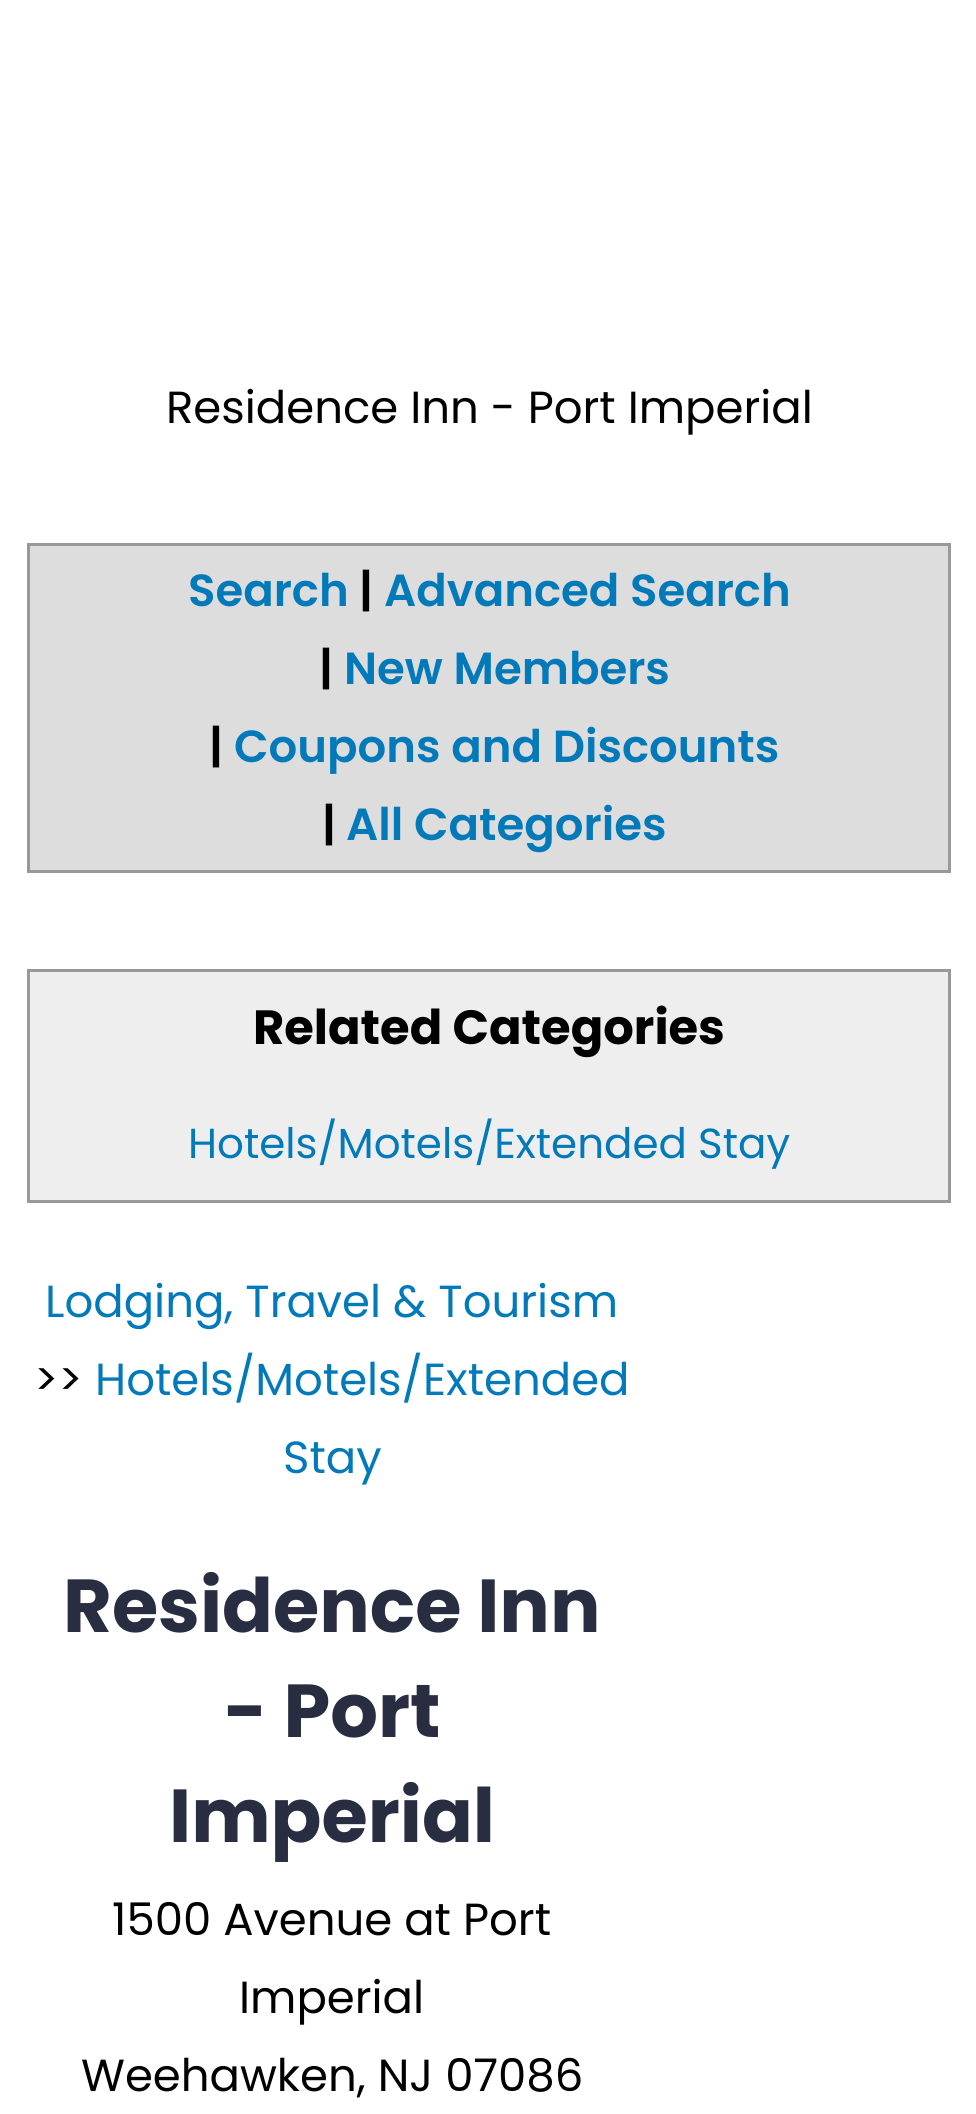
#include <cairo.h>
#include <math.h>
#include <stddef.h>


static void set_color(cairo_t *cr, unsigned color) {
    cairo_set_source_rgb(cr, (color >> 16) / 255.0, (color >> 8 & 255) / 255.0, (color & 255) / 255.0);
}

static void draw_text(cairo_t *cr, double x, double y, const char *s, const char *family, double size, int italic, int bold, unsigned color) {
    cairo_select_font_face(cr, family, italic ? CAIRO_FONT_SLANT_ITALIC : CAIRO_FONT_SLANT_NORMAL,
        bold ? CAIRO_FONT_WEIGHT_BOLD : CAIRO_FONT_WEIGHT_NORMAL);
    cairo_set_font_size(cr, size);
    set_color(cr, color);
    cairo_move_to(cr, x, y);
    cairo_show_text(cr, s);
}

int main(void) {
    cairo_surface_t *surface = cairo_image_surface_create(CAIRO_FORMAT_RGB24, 976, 2114);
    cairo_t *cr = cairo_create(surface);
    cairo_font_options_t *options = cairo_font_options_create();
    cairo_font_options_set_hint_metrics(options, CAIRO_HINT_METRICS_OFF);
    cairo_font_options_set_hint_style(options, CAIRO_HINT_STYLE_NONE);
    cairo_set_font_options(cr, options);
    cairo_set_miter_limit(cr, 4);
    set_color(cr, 0xFFFFFF);
    cairo_paint(cr);
    draw_text(cr, 166, 423, "Residence Inn - Port Imperial", "Poppins", 45, 0, 0, 0x000000);
    set_color(cr, 0xDDDDDD);
    cairo_rectangle(cr, 28.5, 544.5, 921, 327);
    cairo_fill_preserve(cr);
    set_color(cr, 0x999999);
    cairo_set_line_width(cr, 3);
    cairo_stroke(cr);
    draw_text(cr, 188, 606, "Search", "Poppins SemiBold", 45, 0, 0, 0x0279B9);
    draw_text(cr, 359, 606, "|", "Poppins SemiBold", 45, 0, 0, 0x000000);
    draw_text(cr, 384, 606, "Advanced Search", "Poppins SemiBold", 45, 0, 0, 0x0279B9);
    draw_text(cr, 319, 684, "|", "Poppins SemiBold", 45, 0, 0, 0x000000);
    draw_text(cr, 344, 684, "New Members", "Poppins SemiBold", 45, 0, 0, 0x0279B9);
    draw_text(cr, 209, 762, "|", "Poppins SemiBold", 45, 0, 0, 0x000000);
    draw_text(cr, 234, 762, "Coupons and Discounts", "Poppins SemiBold", 45, 0, 0, 0x0279B9);
    draw_text(cr, 322, 840, "|", "Poppins SemiBold", 45, 0, 0, 0x000000);
    draw_text(cr, 346, 840, "All Categories", "Poppins SemiBold", 45, 0, 0, 0x0279B9);
    set_color(cr, 0xEEEEEE);
    cairo_rectangle(cr, 28.5, 970.5, 921, 231);
    cairo_fill_preserve(cr);
    set_color(cr, 0x999999);
    cairo_stroke(cr);
    draw_text(cr, 253, 1044, "Related Categories", "Poppins", 48, 0, 1, 0x000000);
    draw_text(cr, 188, 1158, "Hotels/Motels/Extended Stay", "Poppins", 42, 0, 0, 0x0279B9);
    draw_text(cr, 45, 1317, "Lodging, Travel & Tourism", "Poppins", 45, 0, 0, 0x0279B9);
    draw_text(cr, 34, 1395, ">>", "Poppins", 45, 0, 0, 0x000000);
    draw_text(cr, 95, 1395, "Hotels/Motels/Extended", "Poppins", 45, 0, 0, 0x0279B9);
    draw_text(cr, 283, 1473, "Stay", "Poppins", 45, 0, 0, 0x0279B9);
    draw_text(cr, 63, 1632, "Residence Inn", "Poppins", 75, 0, 1, 0x292D41);
    draw_text(cr, 224, 1737, "- Port", "Poppins", 75, 0, 1, 0x292D41);
    draw_text(cr, 169, 1842, "Imperial", "Poppins", 75, 0, 1, 0x292D41);
    draw_text(cr, 112, 1935, "1500 Avenue at Port", "Poppins", 45, 0, 0, 0x000000);
    draw_text(cr, 239, 2013, "Imperial", "Poppins", 45, 0, 0, 0x000000);
    draw_text(cr, 81, 2091, "Weehawken, NJ 07086", "Poppins", 45, 0, 0, 0x000000);
    cairo_surface_write_to_png(surface, "output.png");
    cairo_font_options_destroy(options);
    cairo_destroy(cr);
    cairo_surface_destroy(surface);
    return 0;
}
